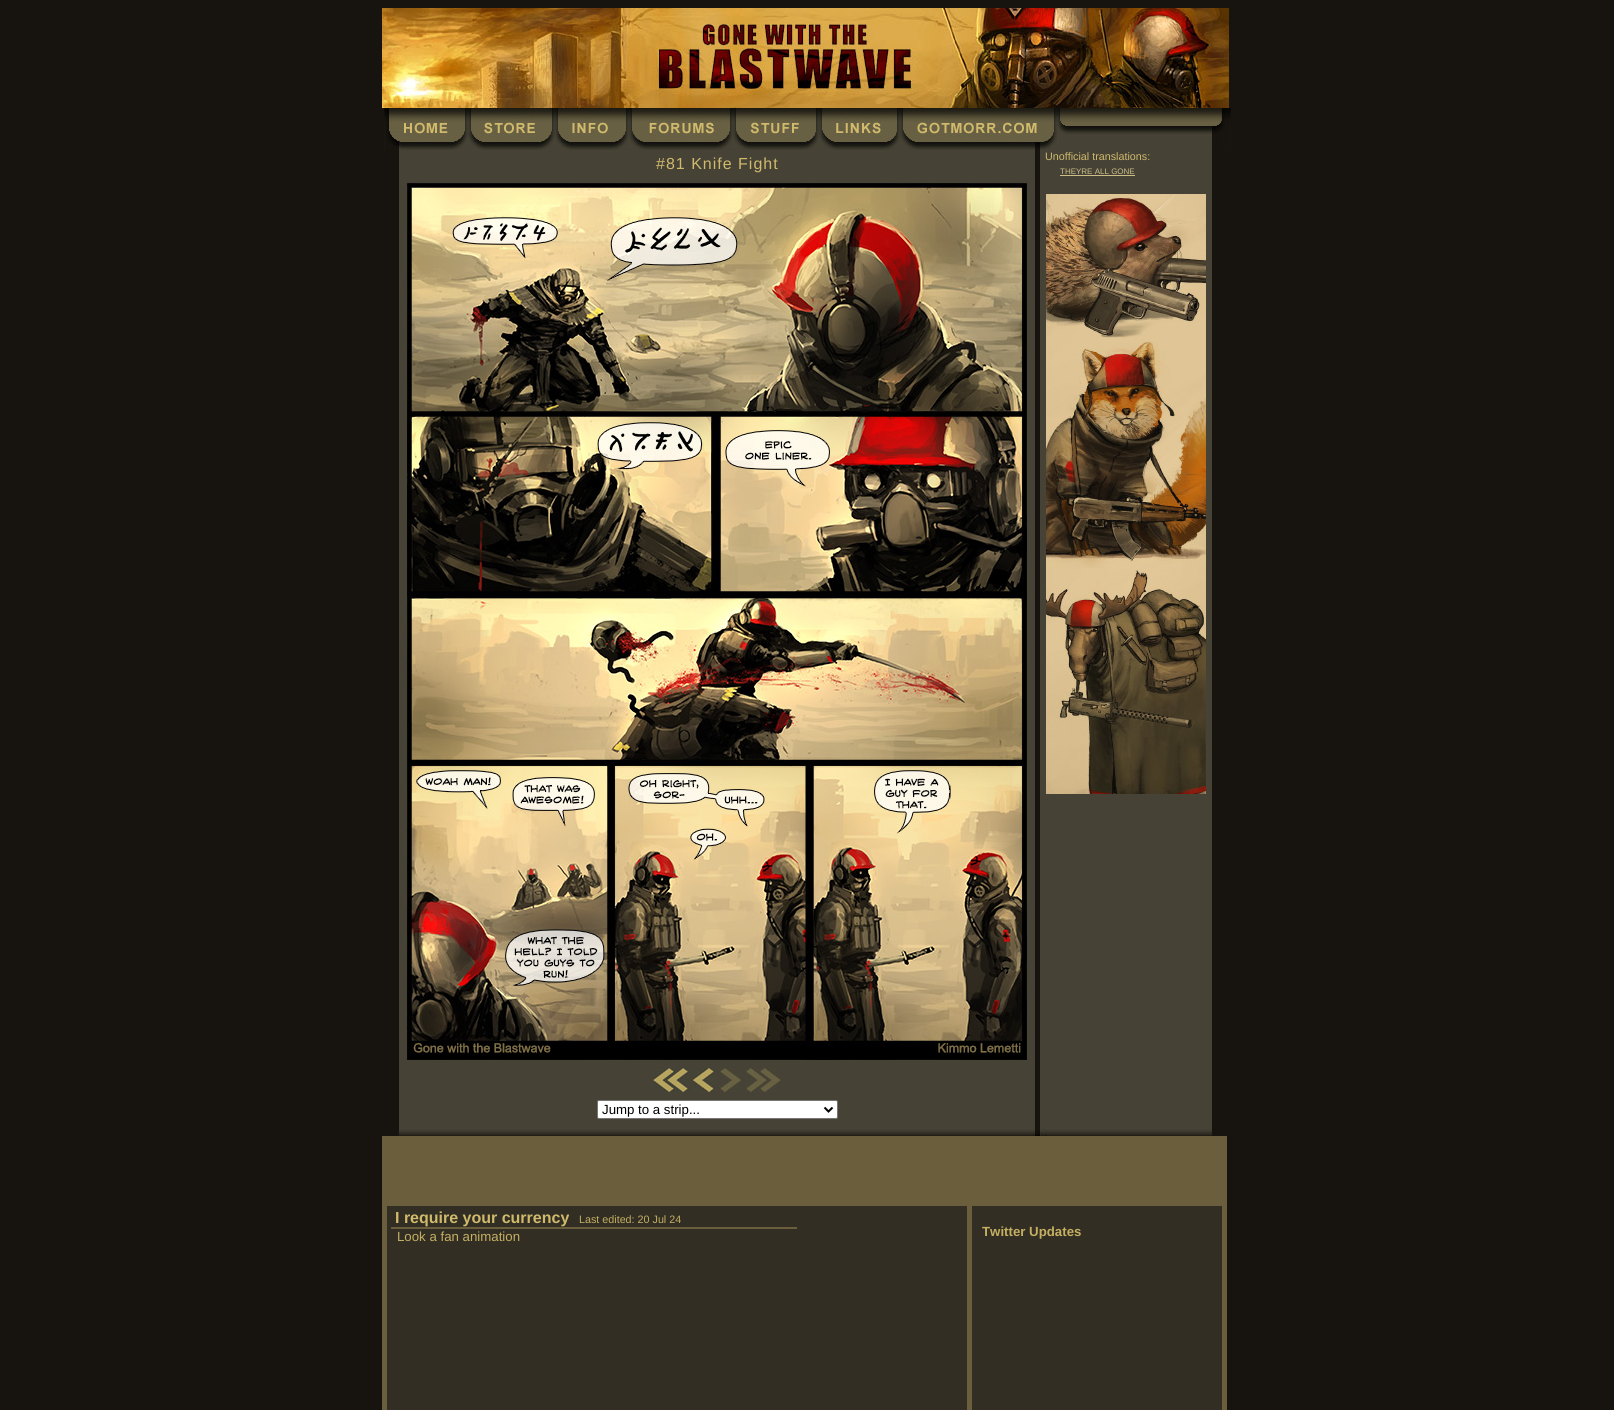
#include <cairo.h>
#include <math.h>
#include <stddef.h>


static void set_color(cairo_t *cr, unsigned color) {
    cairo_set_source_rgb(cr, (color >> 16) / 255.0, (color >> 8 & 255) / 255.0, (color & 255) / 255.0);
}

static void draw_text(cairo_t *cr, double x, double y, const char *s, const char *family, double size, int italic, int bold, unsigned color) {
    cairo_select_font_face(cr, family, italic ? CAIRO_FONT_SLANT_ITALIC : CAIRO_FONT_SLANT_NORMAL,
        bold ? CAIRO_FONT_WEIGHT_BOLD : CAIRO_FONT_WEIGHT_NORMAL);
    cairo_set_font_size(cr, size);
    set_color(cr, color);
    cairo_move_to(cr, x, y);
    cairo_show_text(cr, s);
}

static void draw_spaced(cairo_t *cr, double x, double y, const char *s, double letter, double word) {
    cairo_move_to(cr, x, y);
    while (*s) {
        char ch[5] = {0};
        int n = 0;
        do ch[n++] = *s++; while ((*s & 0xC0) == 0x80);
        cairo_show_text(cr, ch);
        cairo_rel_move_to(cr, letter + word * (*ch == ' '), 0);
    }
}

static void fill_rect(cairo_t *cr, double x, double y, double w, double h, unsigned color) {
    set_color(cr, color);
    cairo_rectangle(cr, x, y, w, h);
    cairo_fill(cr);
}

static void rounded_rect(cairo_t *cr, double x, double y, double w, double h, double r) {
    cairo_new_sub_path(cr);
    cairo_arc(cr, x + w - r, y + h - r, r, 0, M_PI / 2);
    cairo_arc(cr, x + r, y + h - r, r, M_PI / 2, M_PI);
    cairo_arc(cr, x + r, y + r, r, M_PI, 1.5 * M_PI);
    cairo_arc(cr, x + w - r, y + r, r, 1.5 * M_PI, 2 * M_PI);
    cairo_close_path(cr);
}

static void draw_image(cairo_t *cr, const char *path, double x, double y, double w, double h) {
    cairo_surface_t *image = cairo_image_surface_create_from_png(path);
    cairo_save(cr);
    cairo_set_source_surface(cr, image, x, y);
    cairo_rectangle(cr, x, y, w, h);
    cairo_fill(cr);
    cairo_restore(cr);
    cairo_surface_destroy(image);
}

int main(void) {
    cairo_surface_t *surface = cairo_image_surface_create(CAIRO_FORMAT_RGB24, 1614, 1410);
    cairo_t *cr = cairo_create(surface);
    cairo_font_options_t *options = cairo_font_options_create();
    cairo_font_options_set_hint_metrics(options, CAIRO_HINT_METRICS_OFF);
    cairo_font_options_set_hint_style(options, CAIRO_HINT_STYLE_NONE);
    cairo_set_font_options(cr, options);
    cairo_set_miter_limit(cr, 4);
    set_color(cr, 0x17140F);
    cairo_paint(cr);
    draw_image(cr, "assets/img1.png", 382, 8, 847, 100);
    draw_image(cr, "assets/img2.png", 383, 108, 848, 42);
    fill_rect(cr, 399, 150, 636, 979, 0x464236);
    cairo_select_font_face(cr, "Liberation Sans", CAIRO_FONT_SLANT_NORMAL, CAIRO_FONT_WEIGHT_NORMAL);
    cairo_set_font_size(cr, 16);
    set_color(cr, 0xD0BA6C);
    draw_spaced(cr, 656, 169, "#81 Knife Fight", 1, 0);
    draw_image(cr, "assets/img3.png", 407, 183, 620, 877);
    draw_image(cr, "assets/img4.png", 653, 1068, 36, 24);
    draw_image(cr, "assets/img5.png", 693, 1068, 22, 24);
    draw_image(cr, "assets/img6.png", 719, 1068, 22, 24);
    draw_image(cr, "assets/img7.png", 745, 1068, 36, 24);
    set_color(cr, 0xFFFFFF);
    rounded_rect(cr, 597.5, 1100.5, 240, 18, 1.5);
    cairo_fill_preserve(cr);
    set_color(cr, 0x767676);
    cairo_set_line_width(cr, 1);
    cairo_stroke(cr);
    cairo_new_path(cr);
    cairo_move_to(cr, 824.5, 1107.5);
    cairo_line_to(cr, 828.5, 1111.5);
    cairo_line_to(cr, 832.5, 1107.5);
    set_color(cr, 0x000000);
    cairo_set_line_width(cr, 2);
    cairo_stroke(cr);
    draw_text(cr, 602, 1114, "Jump to a strip...", "Liberation Sans", 13.25, 0, 0, 0x000000);
    fill_rect(cr, 1040, 150, 172, 979, 0x464236);
    draw_text(cr, 1045, 160, "Unofficial translations:", "Liberation Sans", 10.75, 0, 0, 0xD0BA6C);
    draw_text(cr, 1060, 174, "THEYRE ALL GONE", "Liberation Sans", 8, 0, 0, 0xCCBE87);
    fill_rect(cr, 1060, 175, 75, 1, 0xCCBE87);
    draw_image(cr, "assets/img8.png", 1046, 194, 160, 600);
    draw_image(cr, "assets/img9.png", 399, 1129, 813, 7);
    fill_rect(cr, 382, 1136, 845, 65, 0x6B5E3C);
    fill_rect(cr, 387, 1206, 580, 204, 0x322E23);
    fill_rect(cr, 382, 1201, 845, 5, 0x6B5E3C);
    fill_rect(cr, 967, 1201, 5, 209, 0x6B5E3C);
    fill_rect(cr, 382, 1201, 5, 209, 0x6B5E3C);
    fill_rect(cr, 391, 1227, 406, 2, 0x6B5E3C);
    draw_text(cr, 395, 1223, "I require your currency", "Liberation Sans", 16, 0, 1, 0xD0BA6C);
    draw_text(cr, 579, 1223, "Last edited: 20 Jul 24", "Liberation Sans", 10.75, 0, 0, 0xC4AF62);
    draw_text(cr, 397, 1241, "Look a fan animation", "Liberation Sans", 13.25, 0, 0, 0xC4AF62);
    fill_rect(cr, 972, 1206, 250, 204, 0x322E23);
    fill_rect(cr, 1222, 1201, 5, 209, 0x6B5E3C);
    draw_text(cr, 982, 1236, "Twitter Updates", "Liberation Sans", 13.25, 0, 1, 0xC4AF62);
    cairo_surface_write_to_png(surface, "output.png");
    cairo_font_options_destroy(options);
    cairo_destroy(cr);
    cairo_surface_destroy(surface);
    return 0;
}
